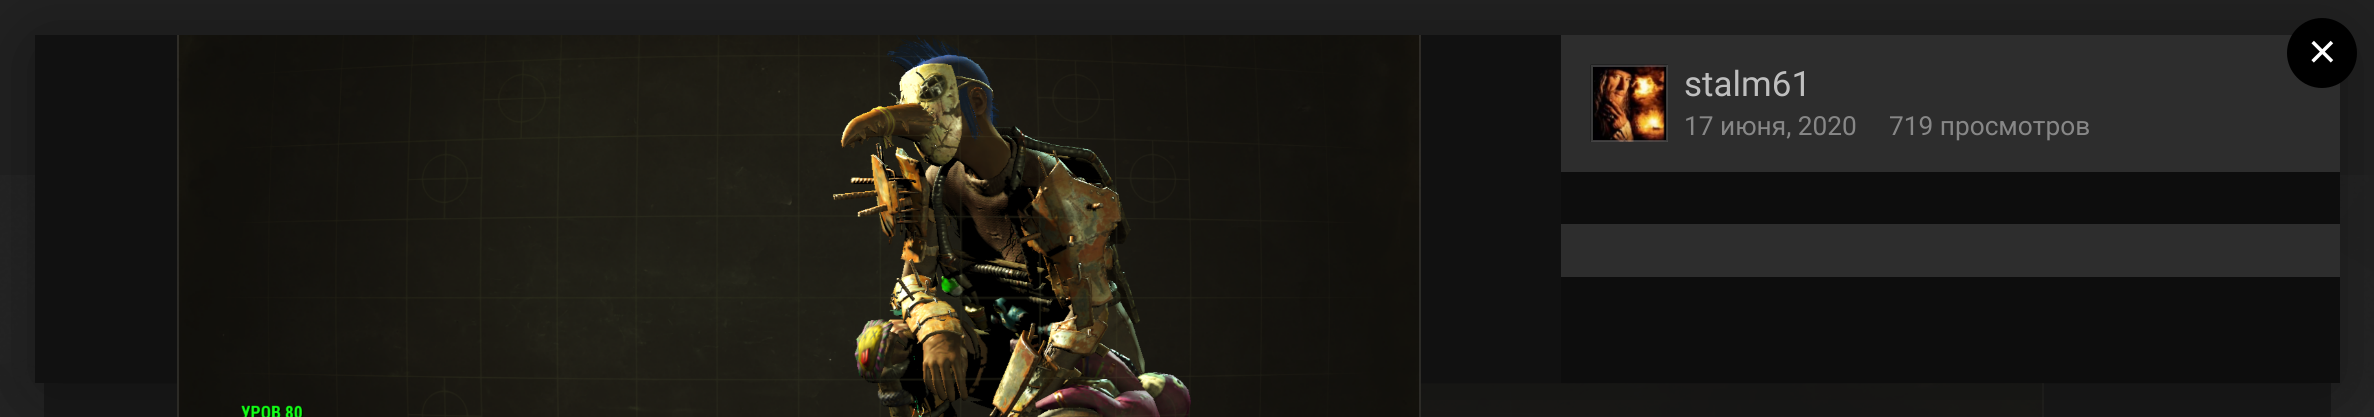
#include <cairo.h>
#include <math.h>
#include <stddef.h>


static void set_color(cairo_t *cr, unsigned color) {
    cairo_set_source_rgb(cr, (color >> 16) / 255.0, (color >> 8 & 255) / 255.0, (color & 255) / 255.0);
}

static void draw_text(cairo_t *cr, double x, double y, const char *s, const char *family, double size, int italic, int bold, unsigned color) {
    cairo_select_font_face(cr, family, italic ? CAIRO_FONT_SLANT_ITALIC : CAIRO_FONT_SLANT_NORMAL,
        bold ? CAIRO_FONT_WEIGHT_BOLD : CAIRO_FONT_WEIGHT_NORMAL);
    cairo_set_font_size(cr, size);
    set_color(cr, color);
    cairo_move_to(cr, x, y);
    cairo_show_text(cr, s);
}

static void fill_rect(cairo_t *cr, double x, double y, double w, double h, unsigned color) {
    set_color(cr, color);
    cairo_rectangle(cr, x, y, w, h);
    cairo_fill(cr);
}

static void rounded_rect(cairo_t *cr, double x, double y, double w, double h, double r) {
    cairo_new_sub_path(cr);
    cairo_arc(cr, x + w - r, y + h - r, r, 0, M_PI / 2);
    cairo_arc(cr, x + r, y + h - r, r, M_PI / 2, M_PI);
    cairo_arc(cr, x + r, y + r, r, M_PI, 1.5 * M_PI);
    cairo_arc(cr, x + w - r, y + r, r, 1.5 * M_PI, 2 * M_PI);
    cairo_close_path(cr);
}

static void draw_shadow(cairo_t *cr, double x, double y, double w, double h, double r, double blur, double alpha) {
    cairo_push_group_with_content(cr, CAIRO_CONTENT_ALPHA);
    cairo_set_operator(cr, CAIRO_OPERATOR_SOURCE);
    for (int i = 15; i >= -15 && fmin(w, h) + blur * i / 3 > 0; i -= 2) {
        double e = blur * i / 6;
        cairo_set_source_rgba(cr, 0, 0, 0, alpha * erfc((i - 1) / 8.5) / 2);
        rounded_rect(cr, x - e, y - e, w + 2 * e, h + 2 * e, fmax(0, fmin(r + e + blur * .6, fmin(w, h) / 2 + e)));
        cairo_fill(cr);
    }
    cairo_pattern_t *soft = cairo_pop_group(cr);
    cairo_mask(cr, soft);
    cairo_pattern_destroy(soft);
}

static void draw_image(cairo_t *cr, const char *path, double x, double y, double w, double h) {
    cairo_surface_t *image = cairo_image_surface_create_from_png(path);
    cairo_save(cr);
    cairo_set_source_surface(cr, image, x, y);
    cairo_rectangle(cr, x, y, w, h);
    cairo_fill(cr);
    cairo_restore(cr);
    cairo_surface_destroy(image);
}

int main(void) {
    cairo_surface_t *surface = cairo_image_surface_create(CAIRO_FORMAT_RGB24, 2374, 417);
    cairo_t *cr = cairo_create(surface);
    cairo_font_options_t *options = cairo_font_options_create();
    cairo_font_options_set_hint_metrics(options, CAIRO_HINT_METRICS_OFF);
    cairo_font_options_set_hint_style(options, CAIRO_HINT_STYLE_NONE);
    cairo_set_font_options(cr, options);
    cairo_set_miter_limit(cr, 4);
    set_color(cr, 0x242424);
    cairo_paint(cr);
    draw_image(cr, "assets/img1.png", 0, 0, 2374, 417);
    cairo_set_source_rgba(cr, 0.133, 0.133, 0.133, 0.9);
    cairo_rectangle(cr, 0, 0, 2374, 175);
    cairo_fill(cr);
    fill_rect(cr, 44, 383, 2287, 34, 0x1A1A1A);
    draw_image(cr, "assets/img4.png", 1420, 383, 624, 34);
    cairo_rectangle(cr, 334, 365, 1709, 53);
    cairo_set_source_rgba(cr, 0.306, 0.306, 0.306, 0.15);
    cairo_stroke(cr);
    set_color(cr, 0x000000);
    draw_shadow(cr, 35, 44, 2305, 348, 0, 48, 0.4);
    fill_rect(cr, 1561, 35, 779, 137, 0x2D2D2D);
    set_color(cr, 0x000000);
    cairo_arc(cr, 2322, 53, 35, 0, 2 * M_PI);
    cairo_fill(cr);
    draw_text(cr, 2308, 68, "×", "Liberation Sans", 49, 0, 0, 0xFFFFFF);
    fill_rect(cr, 35, 35, 1526, 348, 0x111111);
    draw_image(cr, "assets/img2.png", 177, 35, 1244, 382);
    cairo_save(cr);
    cairo_rectangle(cr, 35, 35, 1526, 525);
    cairo_clip(cr);
    cairo_rectangle(cr, 178, -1, 1242, 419);
    cairo_set_source_rgba(cr, 0.749, 0.749, 0.749, 0.15);
    cairo_stroke(cr);
    cairo_restore(cr);
    fill_rect(cr, 1561, 172, 779, 211, 0x0D0D0D);
    draw_image(cr, "assets/img3.png", 1590, 64, 78, 78);
    cairo_rectangle(cr, 1592, 66, 75, 75);
    cairo_set_source_rgba(cr, 0.749, 0.749, 0.749, 0.3);
    cairo_stroke(cr);
    draw_text(cr, 1684, 96, "stalm61", "Roboto", 35, 0, 0, 0xBFBFBF);
    draw_text(cr, 1684, 135, "17 июня, 2020", "Roboto", 26.25, 0, 0, 0x878787);
    draw_text(cr, 1889, 135, "719 просмотров", "Roboto", 26.25, 0, 0, 0x878787);
    fill_rect(cr, 1561, 224, 779, 53, 0x2D2D2D);
    cairo_surface_write_to_png(surface, "output.png");
    cairo_font_options_destroy(options);
    cairo_destroy(cr);
    cairo_surface_destroy(surface);
    return 0;
}
